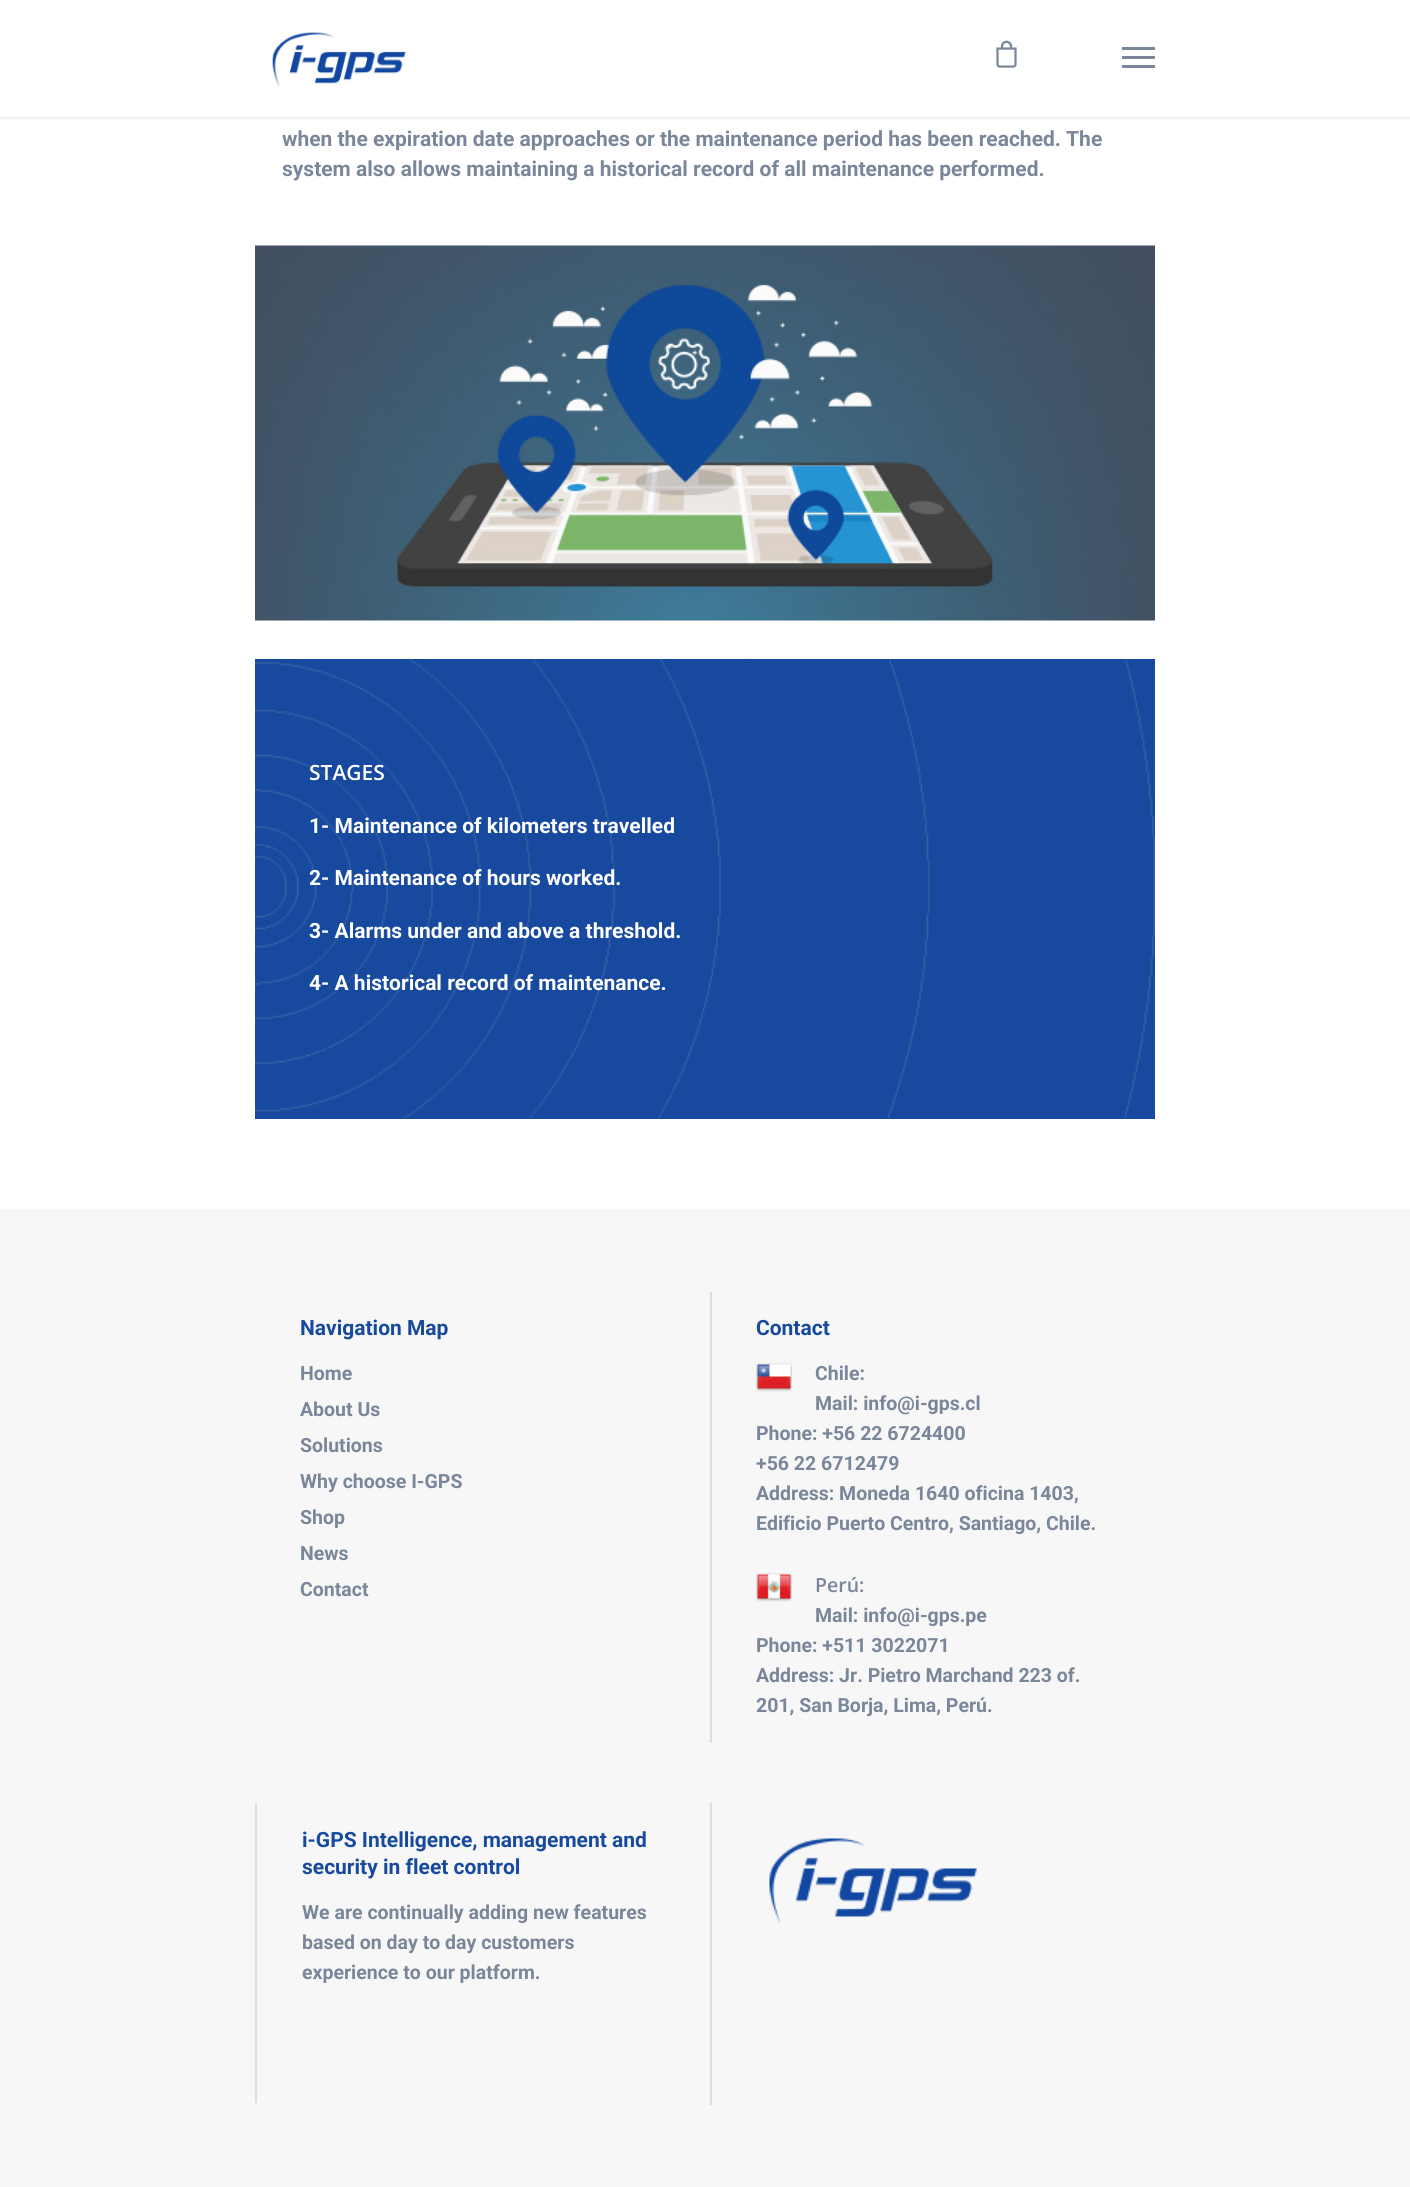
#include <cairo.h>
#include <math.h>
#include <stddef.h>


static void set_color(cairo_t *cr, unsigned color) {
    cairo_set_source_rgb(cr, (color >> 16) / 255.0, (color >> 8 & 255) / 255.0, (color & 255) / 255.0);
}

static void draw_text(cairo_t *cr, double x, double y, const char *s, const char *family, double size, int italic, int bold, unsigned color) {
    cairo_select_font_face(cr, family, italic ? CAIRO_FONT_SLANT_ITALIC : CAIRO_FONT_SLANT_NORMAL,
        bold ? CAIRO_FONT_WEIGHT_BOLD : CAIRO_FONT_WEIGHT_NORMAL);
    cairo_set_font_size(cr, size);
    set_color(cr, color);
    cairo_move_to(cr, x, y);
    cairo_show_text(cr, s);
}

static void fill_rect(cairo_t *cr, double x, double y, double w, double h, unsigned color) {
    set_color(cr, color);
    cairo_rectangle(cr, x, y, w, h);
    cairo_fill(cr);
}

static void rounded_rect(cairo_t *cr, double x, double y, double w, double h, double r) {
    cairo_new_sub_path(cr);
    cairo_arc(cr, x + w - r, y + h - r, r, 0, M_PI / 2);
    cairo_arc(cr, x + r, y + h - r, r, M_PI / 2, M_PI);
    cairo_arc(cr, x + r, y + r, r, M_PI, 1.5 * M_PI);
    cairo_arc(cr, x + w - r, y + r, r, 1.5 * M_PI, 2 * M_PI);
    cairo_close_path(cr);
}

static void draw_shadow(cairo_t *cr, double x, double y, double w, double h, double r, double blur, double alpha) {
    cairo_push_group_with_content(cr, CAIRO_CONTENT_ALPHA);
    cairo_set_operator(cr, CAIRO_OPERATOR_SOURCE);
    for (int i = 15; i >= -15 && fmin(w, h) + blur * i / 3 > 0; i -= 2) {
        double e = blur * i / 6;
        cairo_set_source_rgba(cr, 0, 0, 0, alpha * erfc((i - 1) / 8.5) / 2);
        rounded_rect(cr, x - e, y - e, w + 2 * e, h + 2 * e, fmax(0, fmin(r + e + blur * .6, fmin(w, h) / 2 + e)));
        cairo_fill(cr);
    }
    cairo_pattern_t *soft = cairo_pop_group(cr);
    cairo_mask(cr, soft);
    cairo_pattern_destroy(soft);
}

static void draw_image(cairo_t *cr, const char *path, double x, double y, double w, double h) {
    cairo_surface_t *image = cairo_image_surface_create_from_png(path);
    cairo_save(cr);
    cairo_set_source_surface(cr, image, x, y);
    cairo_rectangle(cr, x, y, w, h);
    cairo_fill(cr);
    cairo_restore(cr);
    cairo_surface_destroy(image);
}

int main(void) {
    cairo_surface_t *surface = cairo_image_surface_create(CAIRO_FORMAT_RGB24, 1410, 2187);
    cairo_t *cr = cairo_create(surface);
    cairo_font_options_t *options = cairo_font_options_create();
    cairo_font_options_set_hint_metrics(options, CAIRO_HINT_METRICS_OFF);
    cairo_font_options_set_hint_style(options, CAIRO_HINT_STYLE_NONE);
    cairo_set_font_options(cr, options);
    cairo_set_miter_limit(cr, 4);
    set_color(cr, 0xF7F7F7);
    cairo_paint(cr);
    fill_rect(cr, 0, 117, 1410, 1092, 0xFFFFFF);
    set_color(cr, 0x000000);
    draw_shadow(cr, 0, 0, 1410, 117, 0, 2, 0.22);
    fill_rect(cr, 0, 0, 1410, 117, 0xFFFFFF);
    cairo_set_source_rgba(cr, 1, 1, 1, 0.2);
    cairo_rectangle(cr, 0, 117, 1410, 1);
    cairo_fill(cr);
    draw_image(cr, "assets/img1.png", 272, 32, 134, 55);
    draw_image(cr, "assets/img2.png", 996, 40, 21, 28);
    fill_rect(cr, 1122, 47, 33, 3, 0x7A869A);
    fill_rect(cr, 1122, 65, 33, 3, 0x7A869A);
    fill_rect(cr, 1122, 56, 33, 3, 0x7A869A);
    draw_text(cr, 282, 146, "when the expiration date approaches or the maintenance period has been reached. The", "Roboto", 21, 0, 1, 0x7A869A);
    draw_text(cr, 282, 176, "system also allows maintaining a historical record of all maintenance performed.", "Roboto", 21, 0, 1, 0x7A869A);
    draw_image(cr, "assets/img3.png", 255, 245, 900, 376);
    draw_image(cr, "assets/img4.png", 294, 658, 825, 1);
    fill_rect(cr, 255, 659, 900, 460, 0x174A9F);
    draw_image(cr, "assets/img5.png", 255, 658, 900, 461);
    draw_text(cr, 309, 780, "STAGES", "Open Sans SemiBold", 21, 0, 0, 0xFFFFFF);
    draw_text(cr, 309, 833, "1- Maintenance of kilometers travelled", "Roboto", 21, 0, 1, 0xFFFFFF);
    draw_text(cr, 309, 885, "2- Maintenance of hours worked.", "Roboto", 21, 0, 1, 0xFFFFFF);
    draw_text(cr, 309, 938, "3- Alarms under and above a threshold.", "Roboto", 21, 0, 1, 0xFFFFFF);
    draw_text(cr, 309, 990, "4- A historical record of maintenance.", "Roboto", 21, 0, 1, 0xFFFFFF);
    draw_text(cr, 300, 1335, "Navigation Map", "Roboto", 21, 0, 1, 0x174A9F);
    draw_text(cr, 300, 1380, "Home", "Roboto", 19.5, 0, 1, 0x7A869A);
    draw_text(cr, 300, 1416, "About Us", "Roboto", 19.5, 0, 1, 0x7A869A);
    draw_text(cr, 300, 1452, "Solutions", "Roboto", 19.5, 0, 1, 0x7A869A);
    draw_text(cr, 300, 1488, "Why choose I-GPS", "Roboto", 19.5, 0, 1, 0x7A869A);
    draw_text(cr, 300, 1524, "Shop", "Roboto", 19.5, 0, 1, 0x7A869A);
    draw_text(cr, 300, 1560, "News", "Roboto", 19.5, 0, 1, 0x7A869A);
    draw_text(cr, 300, 1596, "Contact", "Roboto", 19.5, 0, 1, 0x7A869A);
    fill_rect(cr, 710, 1292, 2, 451, 0xDDDDDD);
    draw_text(cr, 756, 1335, "Contact", "Roboto", 21, 0, 1, 0x174A9F);
    draw_image(cr, "assets/img6.png", 756, 1363, 36, 29);
    draw_text(cr, 815, 1380, "Chile:", "Roboto", 19.5, 0, 1, 0x7A869A);
    draw_text(cr, 815, 1410, "Mail: info@i-gps.cl", "Roboto", 19.5, 0, 1, 0x7A869A);
    draw_text(cr, 756, 1440, "Phone: +56 22 6724400", "Roboto", 19.5, 0, 1, 0x7A869A);
    draw_text(cr, 756, 1470, "+56 22 6712479", "Roboto", 19.5, 0, 1, 0x7A869A);
    draw_text(cr, 756, 1500, "Address: Moneda 1640 oficina 1403,", "Roboto", 19.5, 0, 1, 0x7A869A);
    draw_text(cr, 756, 1530, "Edificio Puerto Centro, Santiago, Chile.", "Roboto", 19.5, 0, 1, 0x7A869A);
    draw_image(cr, "assets/img7.png", 756, 1573, 36, 29);
    draw_text(cr, 815, 1592, "Perú:", "Open Sans SemiBold", 19.5, 0, 0, 0x7A869A);
    draw_text(cr, 815, 1622, "Mail: info@i-gps.pe", "Roboto", 19.5, 0, 1, 0x7A869A);
    draw_text(cr, 756, 1652, "Phone: +511 3022071", "Roboto", 19.5, 0, 1, 0x7A869A);
    draw_text(cr, 756, 1682, "Address: Jr. Pietro Marchand 223 of.", "Roboto", 19.5, 0, 1, 0x7A869A);
    draw_text(cr, 756, 1712, "201, San Borja, Lima, Perú.", "Roboto", 19.5, 0, 1, 0x7A869A);
    fill_rect(cr, 255, 1803, 2, 300, 0xDDDDDD);
    draw_text(cr, 302, 1847, "i-GPS Intelligence, management and", "Roboto", 21, 0, 1, 0x174A9F);
    draw_text(cr, 302, 1874, "security in fleet control", "Roboto", 21, 0, 1, 0x174A9F);
    draw_text(cr, 302, 1919, "We are continually adding new features", "Roboto", 19.5, 0, 1, 0x7A869A);
    draw_text(cr, 302, 1949, "based on day to day customers", "Roboto", 19.5, 0, 1, 0x7A869A);
    draw_text(cr, 302, 1979, "experience to our platform.", "Roboto", 19.5, 0, 1, 0x7A869A);
    fill_rect(cr, 710, 1803, 2, 302, 0xDDDDDD);
    draw_image(cr, "assets/img8.png", 769, 1838, 208, 85);
    cairo_surface_write_to_png(surface, "output.png");
    cairo_font_options_destroy(options);
    cairo_destroy(cr);
    cairo_surface_destroy(surface);
    return 0;
}
